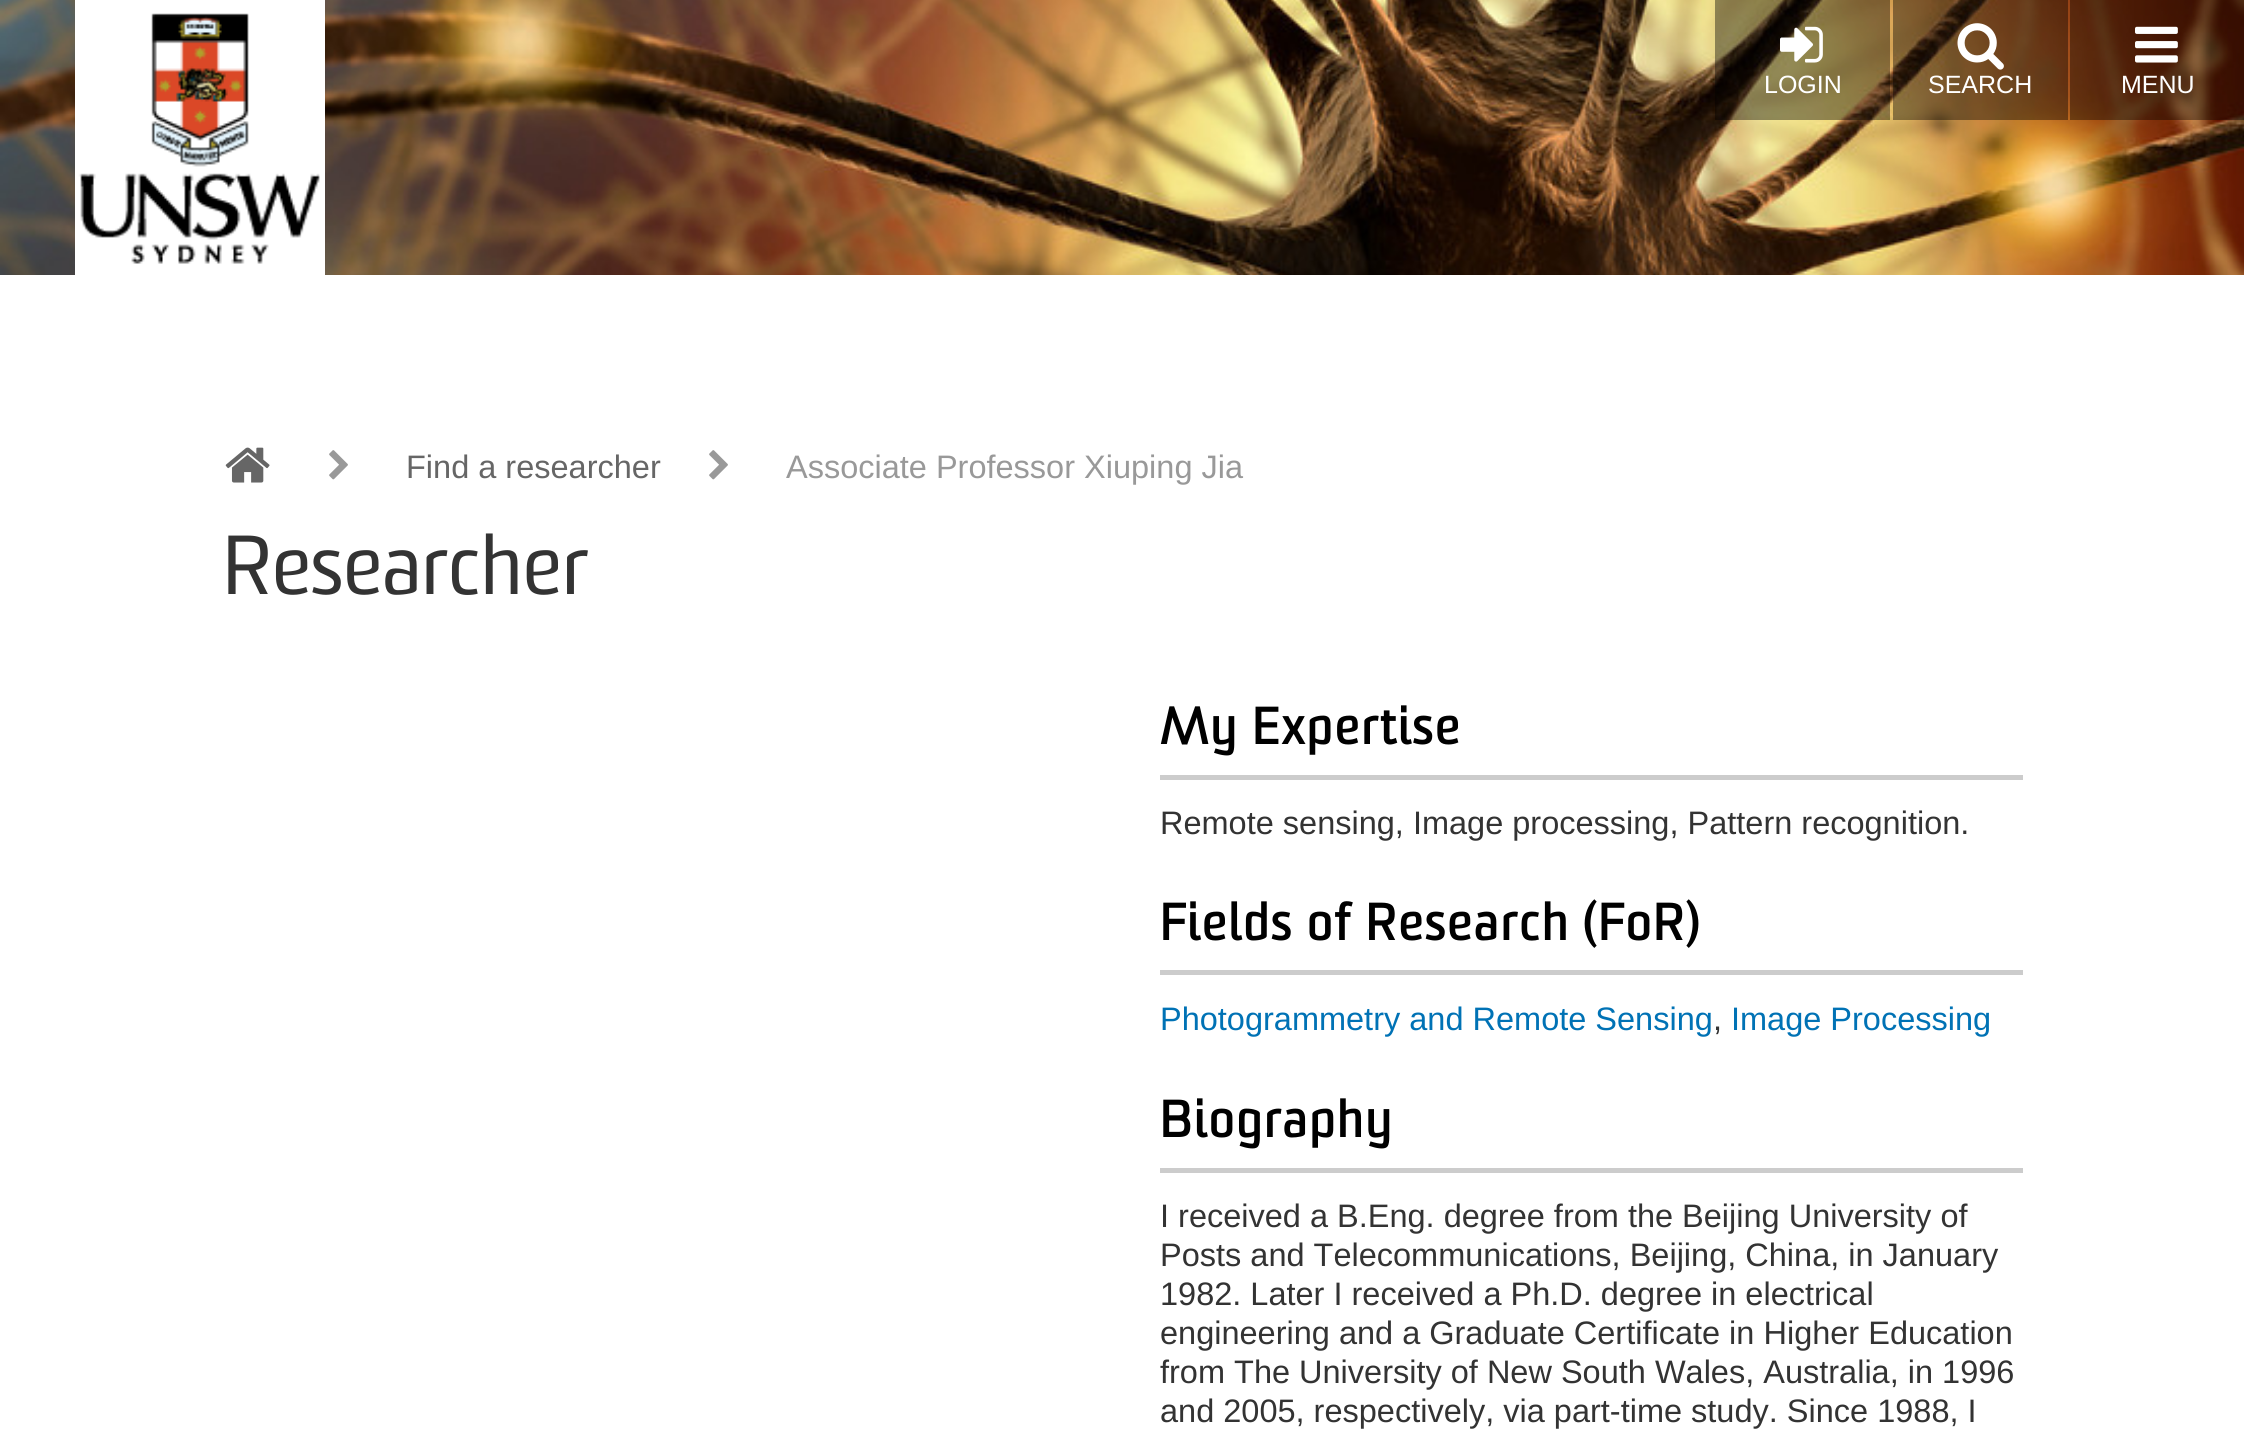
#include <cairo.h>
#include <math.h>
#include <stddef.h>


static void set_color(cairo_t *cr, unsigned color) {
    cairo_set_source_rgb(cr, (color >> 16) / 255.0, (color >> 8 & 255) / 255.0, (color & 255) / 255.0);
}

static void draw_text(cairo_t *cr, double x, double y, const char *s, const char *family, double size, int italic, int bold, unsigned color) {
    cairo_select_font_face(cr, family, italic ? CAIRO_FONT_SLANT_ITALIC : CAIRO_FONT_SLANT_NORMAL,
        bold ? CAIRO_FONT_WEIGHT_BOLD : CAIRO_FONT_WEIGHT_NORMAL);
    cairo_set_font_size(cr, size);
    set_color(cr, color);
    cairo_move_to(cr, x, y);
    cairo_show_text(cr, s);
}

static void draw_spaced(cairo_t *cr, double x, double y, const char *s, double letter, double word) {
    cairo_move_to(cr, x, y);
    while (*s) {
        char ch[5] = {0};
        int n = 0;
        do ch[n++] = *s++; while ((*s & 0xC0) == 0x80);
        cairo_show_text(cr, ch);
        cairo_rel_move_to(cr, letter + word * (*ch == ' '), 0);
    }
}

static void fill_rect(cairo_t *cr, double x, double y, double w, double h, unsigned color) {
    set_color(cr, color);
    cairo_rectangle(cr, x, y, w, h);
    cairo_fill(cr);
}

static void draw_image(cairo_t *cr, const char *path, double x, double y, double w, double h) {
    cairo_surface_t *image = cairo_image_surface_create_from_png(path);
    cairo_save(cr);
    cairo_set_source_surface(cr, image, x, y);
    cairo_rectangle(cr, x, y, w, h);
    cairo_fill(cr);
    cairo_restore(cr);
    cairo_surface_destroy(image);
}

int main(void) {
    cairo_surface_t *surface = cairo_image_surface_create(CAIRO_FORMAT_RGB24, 2244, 1445);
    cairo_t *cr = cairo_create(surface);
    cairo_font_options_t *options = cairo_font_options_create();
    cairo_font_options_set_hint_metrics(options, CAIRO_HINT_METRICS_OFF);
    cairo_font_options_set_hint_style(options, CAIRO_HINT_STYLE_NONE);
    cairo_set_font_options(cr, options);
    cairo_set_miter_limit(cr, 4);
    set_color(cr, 0xFFFFFF);
    cairo_paint(cr);
    draw_image(cr, "assets/img1.png", 0, 0, 2244, 275);
    draw_image(cr, "assets/img2.png", 75, 0, 250, 275);
    cairo_set_source_rgba(cr, 0, 0, 0, 0.4);
    cairo_rectangle(cr, 1715, 0, 175, 120);
    cairo_fill(cr);
    draw_image(cr, "assets/img3.png", 1780, 26, 43, 37);
    draw_text(cr, 1764, 93, "LOGIN", "Liberation Sans", 25, 0, 0, 0xFFFFFF);
    cairo_set_source_rgba(cr, 0, 0, 0, 0.4);
    cairo_rectangle(cr, 1893, 0, 175, 120);
    cairo_fill(cr);
    draw_image(cr, "assets/img4.png", 1957, 23, 47, 47);
    draw_text(cr, 1928, 93, "SEARCH", "Liberation Sans", 25, 0, 0, 0xFFFFFF);
    cairo_set_source_rgba(cr, 0, 0, 0, 0.4);
    cairo_rectangle(cr, 2070, 0, 174, 120);
    cairo_fill(cr);
    draw_image(cr, "assets/img5.png", 2135, 26, 43, 37);
    draw_text(cr, 2121, 93, "MENU", "Liberation Sans", 25, 0, 0, 0xFFFFFF);
    draw_image(cr, "assets/img6.png", 225, 447, 45, 36);
    draw_image(cr, "assets/img7.png", 329, 450, 19, 30);
    draw_text(cr, 406, 478, "Find a researcher", "Liberation Sans", 32.5, 0, 0, 0x666666);
    draw_image(cr, "assets/img7.png", 709, 450, 19, 30);
    draw_text(cr, 786, 478, "Associate Professor Xiuping Jia", "Liberation Sans", 32.5, 0, 0, 0x999999);
    draw_text(cr, 223, 594, "Researcher", "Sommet", 81.25, 0, 0, 0x333333);
    fill_rect(cr, 1160, 775, 863, 5, 0xCCCCCC);
    cairo_select_font_face(cr, "Sommet", CAIRO_FONT_SLANT_NORMAL, CAIRO_FONT_WEIGHT_BOLD);
    cairo_set_font_size(cr, 50);
    set_color(cr, 0x000000);
    draw_spaced(cr, 1160, 744, "My Expertise", 2.5, 0);
    draw_text(cr, 1160, 834, "Remote sensing, Image processing, Pattern recognition.", "Liberation Sans", 32.5, 0, 0, 0x333333);
    fill_rect(cr, 1160, 970, 863, 5, 0xCCCCCC);
    cairo_select_font_face(cr, "Sommet", CAIRO_FONT_SLANT_NORMAL, CAIRO_FONT_WEIGHT_BOLD);
    cairo_set_font_size(cr, 50);
    set_color(cr, 0x000000);
    draw_spaced(cr, 1160, 940, "Fields of Research (FoR)", 2.5, 0);
    draw_text(cr, 1160, 1030, "Photogrammetry and Remote Sensing", "Liberation Sans", 32.5, 0, 0, 0x0072B5);
    draw_text(cr, 1713, 1030, ",", "Liberation Sans", 32.5, 0, 0, 0x333333);
    draw_text(cr, 1731, 1030, "Image Processing", "Liberation Sans", 32.5, 0, 0, 0x0072B5);
    fill_rect(cr, 1160, 1168, 863, 5, 0xCCCCCC);
    cairo_select_font_face(cr, "Sommet", CAIRO_FONT_SLANT_NORMAL, CAIRO_FONT_WEIGHT_BOLD);
    cairo_set_font_size(cr, 50);
    set_color(cr, 0x000000);
    draw_spaced(cr, 1160, 1137, "Biography", 2.5, 0);
    draw_text(cr, 1160, 1227, "I received a B.Eng. degree from the Beijing University of", "Liberation Sans", 32.5, 0, 0, 0x333333);
    draw_text(cr, 1160, 1266, "Posts and Telecommunications, Beijing, China, in January", "Liberation Sans", 32.5, 0, 0, 0x333333);
    draw_text(cr, 1160, 1305, "1982. Later I received a Ph.D. degree in electrical", "Liberation Sans", 32.5, 0, 0, 0x333333);
    draw_text(cr, 1160, 1344, "engineering and a Graduate Certificate in Higher Education", "Liberation Sans", 32.5, 0, 0, 0x333333);
    draw_text(cr, 1160, 1383, "from The University of New South Wales, Australia, in 1996", "Liberation Sans", 32.5, 0, 0, 0x333333);
    draw_text(cr, 1160, 1422, "and 2005, respectively, via part-time study. Since 1988, I", "Liberation Sans", 32.5, 0, 0, 0x333333);
    cairo_surface_write_to_png(surface, "output.png");
    cairo_font_options_destroy(options);
    cairo_destroy(cr);
    cairo_surface_destroy(surface);
    return 0;
}
